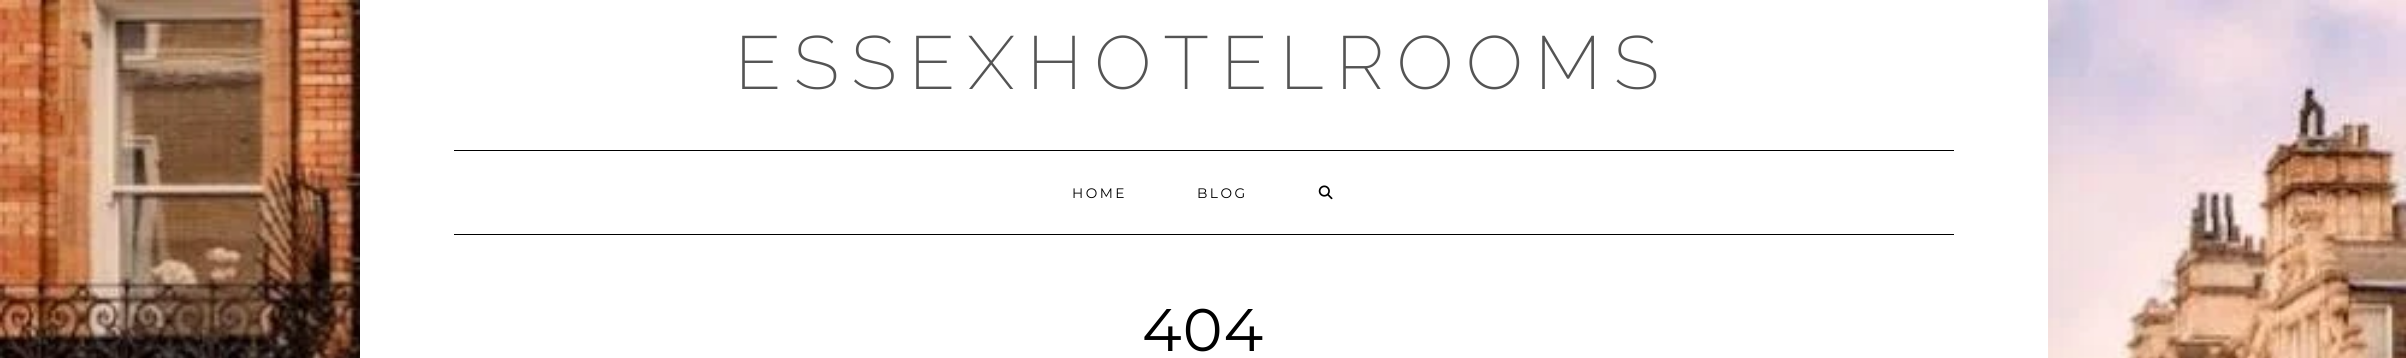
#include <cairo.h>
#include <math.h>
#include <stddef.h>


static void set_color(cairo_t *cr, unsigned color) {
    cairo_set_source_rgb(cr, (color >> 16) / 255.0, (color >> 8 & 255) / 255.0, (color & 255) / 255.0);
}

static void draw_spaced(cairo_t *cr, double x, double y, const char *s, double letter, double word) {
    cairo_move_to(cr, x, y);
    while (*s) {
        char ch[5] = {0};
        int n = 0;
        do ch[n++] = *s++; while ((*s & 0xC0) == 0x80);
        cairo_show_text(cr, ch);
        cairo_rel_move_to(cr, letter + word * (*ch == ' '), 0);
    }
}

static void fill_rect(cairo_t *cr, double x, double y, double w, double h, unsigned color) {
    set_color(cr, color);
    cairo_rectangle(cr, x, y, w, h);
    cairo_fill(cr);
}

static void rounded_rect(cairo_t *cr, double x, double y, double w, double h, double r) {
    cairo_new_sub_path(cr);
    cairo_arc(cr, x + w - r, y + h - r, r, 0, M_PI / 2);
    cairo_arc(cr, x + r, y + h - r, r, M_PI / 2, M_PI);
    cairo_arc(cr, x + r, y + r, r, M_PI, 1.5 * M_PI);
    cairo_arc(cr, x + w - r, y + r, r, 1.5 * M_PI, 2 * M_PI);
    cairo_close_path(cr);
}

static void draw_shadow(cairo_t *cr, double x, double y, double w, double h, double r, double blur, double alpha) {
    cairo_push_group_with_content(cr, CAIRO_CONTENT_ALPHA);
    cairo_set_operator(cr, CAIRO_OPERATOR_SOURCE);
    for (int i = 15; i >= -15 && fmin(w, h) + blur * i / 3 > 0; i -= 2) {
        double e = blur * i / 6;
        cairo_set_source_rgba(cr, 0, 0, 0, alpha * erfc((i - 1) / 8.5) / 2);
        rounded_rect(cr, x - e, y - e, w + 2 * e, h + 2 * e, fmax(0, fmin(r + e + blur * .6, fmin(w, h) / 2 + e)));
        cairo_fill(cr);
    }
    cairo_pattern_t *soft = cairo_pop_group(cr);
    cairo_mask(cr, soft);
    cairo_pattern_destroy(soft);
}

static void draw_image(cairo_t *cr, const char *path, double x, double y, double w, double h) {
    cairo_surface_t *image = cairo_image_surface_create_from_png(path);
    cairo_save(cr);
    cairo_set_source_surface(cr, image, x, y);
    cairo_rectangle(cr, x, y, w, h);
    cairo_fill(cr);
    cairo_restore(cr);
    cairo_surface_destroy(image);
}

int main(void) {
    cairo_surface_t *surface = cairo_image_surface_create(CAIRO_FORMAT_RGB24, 2406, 358);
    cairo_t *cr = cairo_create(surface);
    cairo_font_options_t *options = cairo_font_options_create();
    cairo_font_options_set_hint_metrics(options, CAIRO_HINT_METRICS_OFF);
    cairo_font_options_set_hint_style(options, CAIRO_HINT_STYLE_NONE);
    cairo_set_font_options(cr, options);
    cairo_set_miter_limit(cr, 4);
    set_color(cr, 0xFFFFFF);
    cairo_paint(cr);
    draw_image(cr, "assets/img1.png", 0, 0, 2406, 358);
    set_color(cr, 0x000000);
    draw_shadow(cr, 360, 0, 1688, 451, 0, 31, 0.06);
    fill_rect(cr, 360, 0, 1688, 358, 0xFFFFFF);
    cairo_select_font_face(cr, "Raleway Thin", CAIRO_FONT_SLANT_NORMAL, CAIRO_FONT_WEIGHT_NORMAL);
    cairo_set_font_size(cr, 75);
    set_color(cr, 0x545454);
    draw_spaced(cr, 735, 89, "ESSEXHOTELROOMS", 12.5, 0);
    fill_rect(cr, 454, 150, 1500, 1, 0x000000);
    fill_rect(cr, 454, 234, 1500, 1, 0x000000);
    cairo_select_font_face(cr, "Montserrat", CAIRO_FONT_SLANT_NORMAL, CAIRO_FONT_WEIGHT_NORMAL);
    cairo_set_font_size(cr, 13.75);
    draw_spaced(cr, 1072, 198, "HOME", 2.5, 0);
    draw_spaced(cr, 1197, 198, "BLOG", 2.5, 0);
    draw_image(cr, "assets/img2.png", 1318, 185, 15, 15);
    cairo_set_font_size(cr, 60);
    draw_spaced(cr, 1142, 351, "404", 1, 0);
    cairo_surface_write_to_png(surface, "output.png");
    cairo_font_options_destroy(options);
    cairo_destroy(cr);
    cairo_surface_destroy(surface);
    return 0;
}
